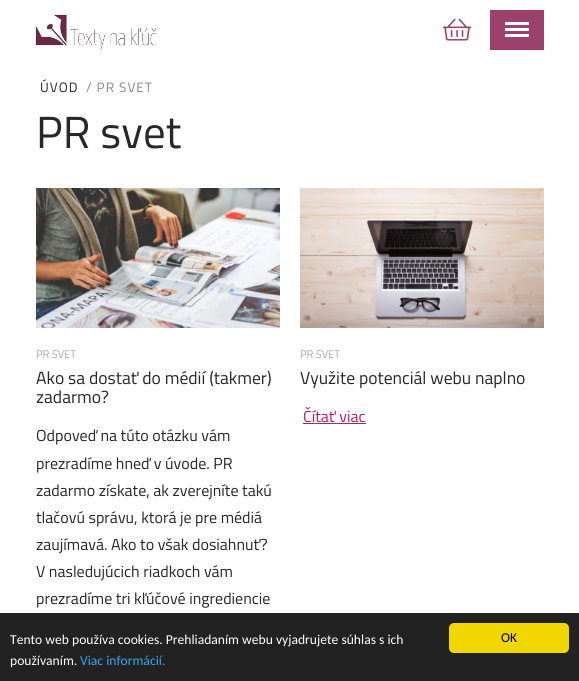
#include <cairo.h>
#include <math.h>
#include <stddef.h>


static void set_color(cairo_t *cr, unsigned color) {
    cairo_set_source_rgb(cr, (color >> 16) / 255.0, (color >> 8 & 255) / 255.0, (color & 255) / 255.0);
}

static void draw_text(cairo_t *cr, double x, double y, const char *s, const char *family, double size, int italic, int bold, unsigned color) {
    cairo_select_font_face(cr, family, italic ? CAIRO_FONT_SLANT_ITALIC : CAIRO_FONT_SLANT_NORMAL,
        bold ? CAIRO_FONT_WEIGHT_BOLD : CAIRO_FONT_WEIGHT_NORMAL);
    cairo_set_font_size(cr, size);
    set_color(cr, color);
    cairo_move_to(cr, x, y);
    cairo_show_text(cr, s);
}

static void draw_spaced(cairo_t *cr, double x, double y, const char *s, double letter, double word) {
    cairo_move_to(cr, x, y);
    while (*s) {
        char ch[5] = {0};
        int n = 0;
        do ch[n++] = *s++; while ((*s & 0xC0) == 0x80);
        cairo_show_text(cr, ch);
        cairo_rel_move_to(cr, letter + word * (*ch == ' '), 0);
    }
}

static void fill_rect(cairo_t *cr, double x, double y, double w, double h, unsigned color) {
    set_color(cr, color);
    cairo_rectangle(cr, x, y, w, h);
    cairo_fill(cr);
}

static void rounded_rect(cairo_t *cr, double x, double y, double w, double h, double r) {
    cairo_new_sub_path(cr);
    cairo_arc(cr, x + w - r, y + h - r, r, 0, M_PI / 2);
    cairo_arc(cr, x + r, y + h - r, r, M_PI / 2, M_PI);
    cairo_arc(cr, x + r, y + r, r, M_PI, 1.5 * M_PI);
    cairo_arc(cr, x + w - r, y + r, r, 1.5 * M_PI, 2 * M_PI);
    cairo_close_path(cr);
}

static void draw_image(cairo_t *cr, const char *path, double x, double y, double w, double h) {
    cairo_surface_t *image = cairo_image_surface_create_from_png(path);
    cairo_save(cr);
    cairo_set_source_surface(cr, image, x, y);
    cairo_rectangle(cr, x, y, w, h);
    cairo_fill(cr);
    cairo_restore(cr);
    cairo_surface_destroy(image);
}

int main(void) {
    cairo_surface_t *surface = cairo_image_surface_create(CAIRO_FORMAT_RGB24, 579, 681);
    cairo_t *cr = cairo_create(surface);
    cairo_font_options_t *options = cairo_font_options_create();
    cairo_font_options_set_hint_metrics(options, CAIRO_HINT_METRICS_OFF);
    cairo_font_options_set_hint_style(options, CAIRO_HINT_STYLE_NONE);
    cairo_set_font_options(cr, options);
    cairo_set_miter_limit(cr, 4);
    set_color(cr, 0xFFFFFF);
    cairo_paint(cr);
    draw_image(cr, "assets/img1.png", 35, 14, 122, 36);
    draw_image(cr, "assets/img2.png", 443, 18, 29, 23);
    fill_rect(cr, 490, 10, 54, 40, 0x9C416C);
    fill_rect(cr, 505, 22, 24, 3, 0xFFFFFF);
    fill_rect(cr, 505, 28, 24, 3, 0xFFFFFF);
    fill_rect(cr, 505, 34, 24, 3, 0xFFFFFF);
    cairo_select_font_face(cr, "Titillium Web", CAIRO_FONT_SLANT_NORMAL, CAIRO_FONT_WEIGHT_NORMAL);
    cairo_set_font_size(cr, 13.6);
    set_color(cr, 0x272727);
    draw_spaced(cr, 40, 92, "ÚVOD", 1, 0);
    set_color(cr, 0x888888);
    draw_spaced(cr, 86, 92, "/ PR SVET", 1, 0);
    draw_text(cr, 36, 148, "PR svet", "Titillium Web", 45, 0, 0, 0x272727);
    draw_image(cr, "assets/img3.png", 36, 188, 244, 140);
    draw_text(cr, 36, 358, "PR SVET", "Titillium Web", 11, 0, 0, 0xA7A7A7);
    draw_text(cr, 36, 384, "Ako sa dostať do médií (takmer)", "Titillium Web", 17.6, 0, 0, 0x272727);
    draw_text(cr, 36, 403, "zadarmo?", "Titillium Web", 17.6, 0, 0, 0x272727);
    draw_text(cr, 36, 441, "Odpoveď na túto otázku vám", "Titillium Web", 16, 0, 0, 0x272727);
    draw_text(cr, 36, 469, "prezradíme hneď v úvode. PR", "Titillium Web", 16, 0, 0, 0x272727);
    draw_text(cr, 36, 496, "zadarmo získate, ak zverejníte takú", "Titillium Web", 16, 0, 0, 0x272727);
    draw_text(cr, 36, 523, "tlačovú správu, ktorá je pre médiá", "Titillium Web", 16, 0, 0, 0x272727);
    draw_text(cr, 36, 550, "zaujímavá. Ako to však dosiahnuť?", "Titillium Web", 16, 0, 0, 0x272727);
    draw_text(cr, 36, 577, "V nasledujúcich riadkoch vám", "Titillium Web", 16, 0, 0, 0x272727);
    draw_text(cr, 36, 604, "prezradíme tri kľúčové ingrediencie", "Titillium Web", 16, 0, 0, 0x272727);
    draw_image(cr, "assets/img4.png", 300, 188, 244, 140);
    draw_text(cr, 300, 358, "PR SVET", "Titillium Web", 11, 0, 0, 0xA7A7A7);
    draw_text(cr, 300, 384, "Využite potenciál webu naplno", "Titillium Web", 17.6, 0, 0, 0x272727);
    draw_text(cr, 303, 422, "Čítať viac", "Titillium Web", 16, 0, 0, 0xAF1F67);
    fill_rect(cr, 303, 423, 63, 1, 0xAF1F67);
    fill_rect(cr, 0, 613, 579, 68, 0x222222);
    draw_text(cr, 10, 644, "Tento web používa cookies. Prehliadaním webu vyjadrujete súhlas s ich", "Carlito", 13.6, 0, 0, 0xFFFFFF);
    draw_text(cr, 10, 665, "používaním.", "Carlito", 13.6, 0, 0, 0xFFFFFF);
    draw_text(cr, 80, 665, "Viac informácií.", "Carlito", 13.6, 0, 0, 0x31A8F0);
    set_color(cr, 0xF1D600);
    rounded_rect(cr, 449, 623, 120, 30, 5);
    cairo_fill(cr);
    draw_text(cr, 501, 642, "OK", "Carlito", 13.6, 0, 0, 0x000000);
    cairo_surface_write_to_png(surface, "output.png");
    cairo_font_options_destroy(options);
    cairo_destroy(cr);
    cairo_surface_destroy(surface);
    return 0;
}
